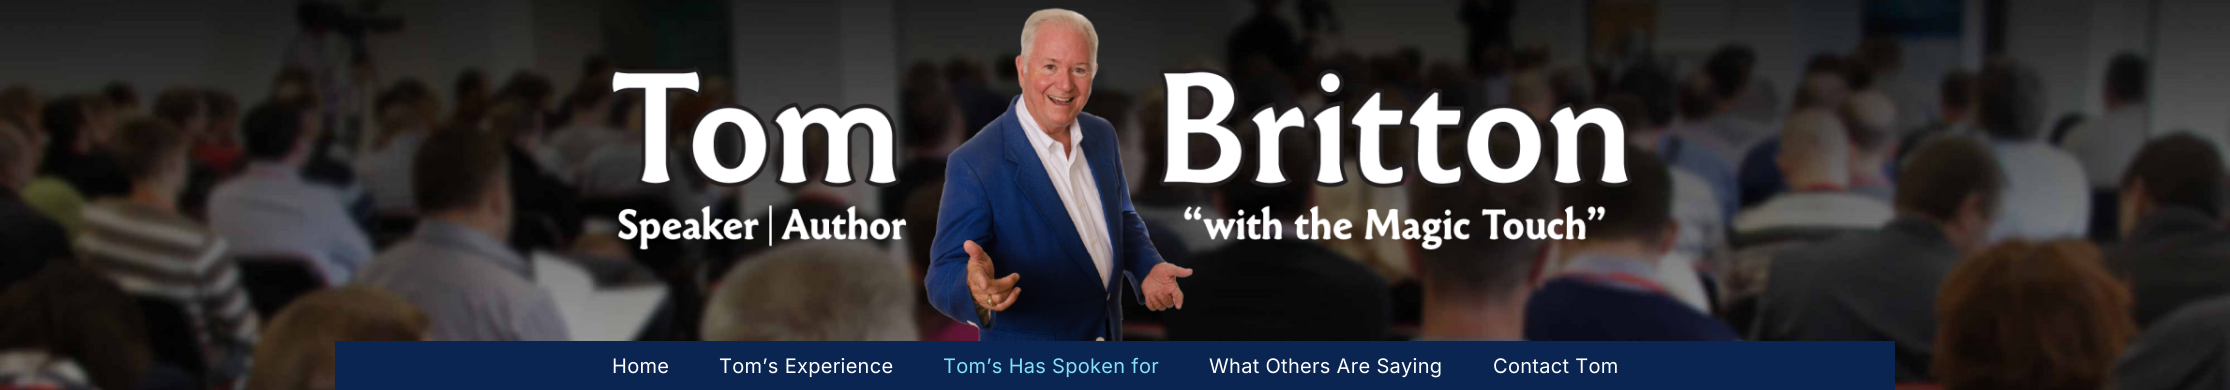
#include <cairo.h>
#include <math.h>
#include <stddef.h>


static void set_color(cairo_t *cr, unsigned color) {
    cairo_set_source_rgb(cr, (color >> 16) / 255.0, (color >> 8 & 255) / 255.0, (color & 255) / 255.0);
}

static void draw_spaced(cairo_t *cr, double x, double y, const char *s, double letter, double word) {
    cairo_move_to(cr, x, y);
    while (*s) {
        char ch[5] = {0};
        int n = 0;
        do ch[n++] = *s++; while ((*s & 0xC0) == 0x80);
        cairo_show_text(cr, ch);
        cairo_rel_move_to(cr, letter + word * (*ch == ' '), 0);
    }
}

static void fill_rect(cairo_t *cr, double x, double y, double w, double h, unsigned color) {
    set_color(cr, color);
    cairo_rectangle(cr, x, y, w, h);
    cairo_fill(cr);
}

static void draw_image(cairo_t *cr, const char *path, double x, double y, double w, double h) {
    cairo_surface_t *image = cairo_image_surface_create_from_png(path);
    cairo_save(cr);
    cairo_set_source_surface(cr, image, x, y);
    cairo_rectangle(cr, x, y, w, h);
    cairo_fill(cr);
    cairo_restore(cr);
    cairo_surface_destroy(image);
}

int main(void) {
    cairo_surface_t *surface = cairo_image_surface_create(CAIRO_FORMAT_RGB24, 2230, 390);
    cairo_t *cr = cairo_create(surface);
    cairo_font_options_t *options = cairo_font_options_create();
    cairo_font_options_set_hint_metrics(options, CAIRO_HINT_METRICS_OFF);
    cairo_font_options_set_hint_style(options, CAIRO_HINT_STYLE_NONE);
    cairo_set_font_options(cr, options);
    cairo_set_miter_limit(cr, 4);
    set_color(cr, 0xFFFFFF);
    cairo_paint(cr);
    draw_image(cr, "assets/img1.png", 0, 0, 2230, 390);
    draw_image(cr, "assets/img2.png", 608, 7, 1025, 334);
    fill_rect(cr, 335, 341, 1560, 49, 0x0A2552);
    cairo_select_font_face(cr, "Inter", CAIRO_FONT_SLANT_NORMAL, CAIRO_FONT_WEIGHT_NORMAL);
    cairo_set_font_size(cr, 20);
    set_color(cr, 0xFFFFFF);
    draw_spaced(cr, 612, 373, "Home", 0.3, 0);
    draw_spaced(cr, 719, 373, "Tom’s Experience", 0.3, 0);
    set_color(cr, 0x84E0F4);
    draw_spaced(cr, 943, 373, "Tom’s Has Spoken for", 0.3, 0);
    set_color(cr, 0xFFFFFF);
    draw_spaced(cr, 1209, 373, "What Others Are Saying", 0.3, 0);
    draw_spaced(cr, 1493, 373, "Contact Tom", 0.3, 0);
    cairo_surface_write_to_png(surface, "output.png");
    cairo_font_options_destroy(options);
    cairo_destroy(cr);
    cairo_surface_destroy(surface);
    return 0;
}
